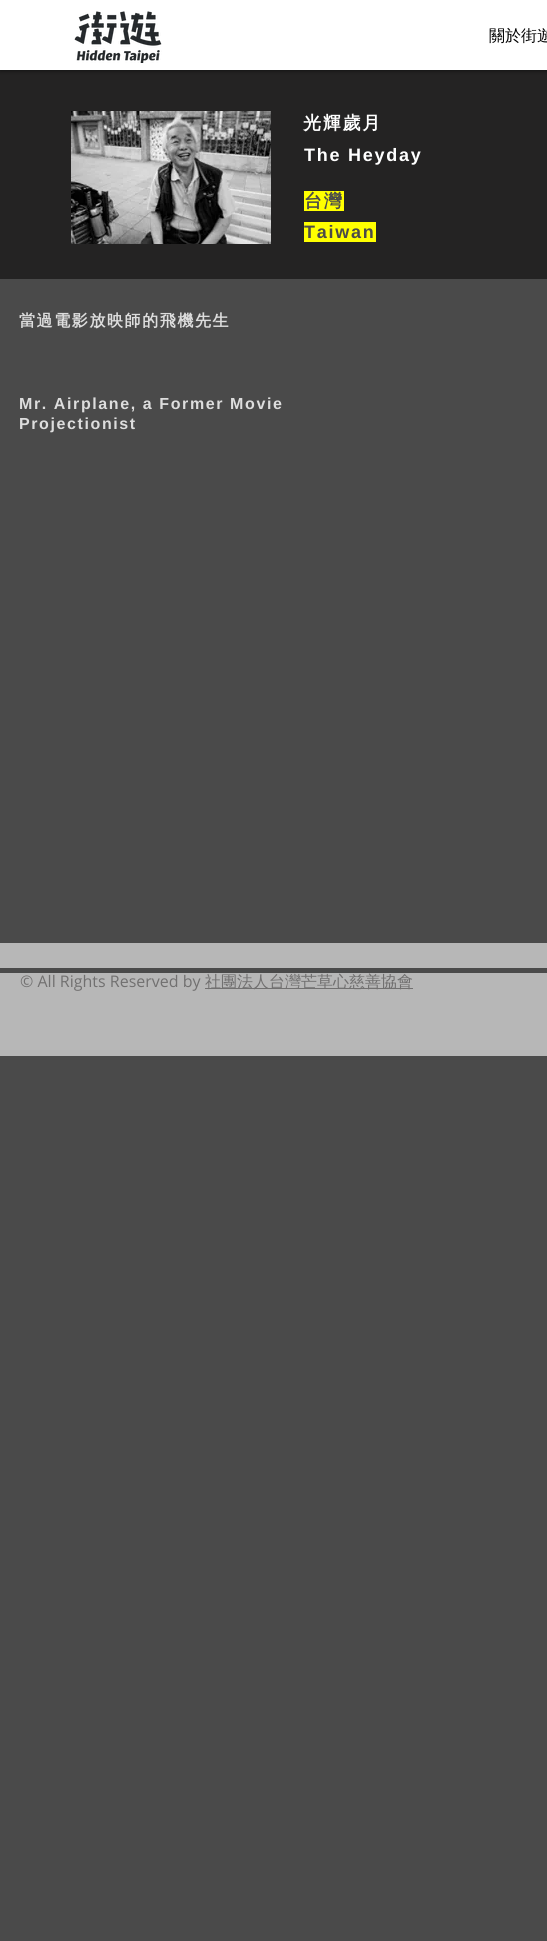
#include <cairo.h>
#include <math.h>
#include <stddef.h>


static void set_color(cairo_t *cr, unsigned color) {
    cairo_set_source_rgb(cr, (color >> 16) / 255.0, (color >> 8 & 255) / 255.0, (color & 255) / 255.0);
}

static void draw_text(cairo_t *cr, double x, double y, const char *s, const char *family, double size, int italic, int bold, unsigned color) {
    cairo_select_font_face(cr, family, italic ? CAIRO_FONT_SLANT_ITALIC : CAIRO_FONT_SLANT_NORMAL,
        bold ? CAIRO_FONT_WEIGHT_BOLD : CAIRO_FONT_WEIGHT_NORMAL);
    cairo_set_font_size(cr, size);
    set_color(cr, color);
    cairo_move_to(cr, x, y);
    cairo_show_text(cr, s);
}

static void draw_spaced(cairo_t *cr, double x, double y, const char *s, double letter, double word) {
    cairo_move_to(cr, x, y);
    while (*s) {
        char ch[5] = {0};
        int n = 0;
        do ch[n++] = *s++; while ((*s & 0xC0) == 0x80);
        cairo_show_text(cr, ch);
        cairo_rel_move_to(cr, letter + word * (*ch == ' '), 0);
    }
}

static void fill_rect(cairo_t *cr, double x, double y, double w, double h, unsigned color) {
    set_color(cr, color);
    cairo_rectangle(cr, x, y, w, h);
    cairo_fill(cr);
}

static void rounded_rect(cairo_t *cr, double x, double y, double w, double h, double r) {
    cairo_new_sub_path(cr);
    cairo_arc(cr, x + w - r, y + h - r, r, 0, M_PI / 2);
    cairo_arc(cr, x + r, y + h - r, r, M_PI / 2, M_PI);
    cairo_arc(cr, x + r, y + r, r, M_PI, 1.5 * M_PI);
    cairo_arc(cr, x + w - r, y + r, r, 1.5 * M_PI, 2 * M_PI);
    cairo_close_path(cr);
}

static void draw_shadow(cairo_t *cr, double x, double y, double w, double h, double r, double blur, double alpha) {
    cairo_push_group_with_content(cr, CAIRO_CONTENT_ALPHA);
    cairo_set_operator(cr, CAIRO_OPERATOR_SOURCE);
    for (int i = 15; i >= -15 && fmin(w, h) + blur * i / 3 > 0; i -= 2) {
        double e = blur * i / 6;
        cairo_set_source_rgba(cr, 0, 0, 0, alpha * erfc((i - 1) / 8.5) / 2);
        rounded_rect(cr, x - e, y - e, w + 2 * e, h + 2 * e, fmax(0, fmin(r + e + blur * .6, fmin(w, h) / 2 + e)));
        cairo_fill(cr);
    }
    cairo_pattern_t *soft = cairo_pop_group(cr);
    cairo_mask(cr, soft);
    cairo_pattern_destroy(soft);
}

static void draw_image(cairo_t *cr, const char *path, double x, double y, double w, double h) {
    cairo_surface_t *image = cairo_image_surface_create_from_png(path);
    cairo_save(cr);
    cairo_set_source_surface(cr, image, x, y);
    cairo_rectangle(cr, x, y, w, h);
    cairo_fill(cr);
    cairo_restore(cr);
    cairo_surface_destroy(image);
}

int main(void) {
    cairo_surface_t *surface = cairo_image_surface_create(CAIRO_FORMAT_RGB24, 547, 1941);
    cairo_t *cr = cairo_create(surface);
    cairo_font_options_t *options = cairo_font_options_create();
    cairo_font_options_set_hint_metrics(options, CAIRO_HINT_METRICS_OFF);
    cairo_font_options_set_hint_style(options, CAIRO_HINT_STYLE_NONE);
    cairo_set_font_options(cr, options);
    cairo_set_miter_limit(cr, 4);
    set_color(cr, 0x4A4A4A);
    cairo_paint(cr);
    fill_rect(cr, 0, 70, 547, 209, 0x242323);
    set_color(cr, 0x000000);
    draw_shadow(cr, 0, 0, 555, 70, 0, 2.5, 0.7);
    fill_rect(cr, 0, 0, 547, 70, 0xFFFFFF);
    draw_image(cr, "assets/img1.png", 74, 11, 88, 52);
    draw_text(cr, 489, 41, "關於街遊", "WenQuanYi Zen Hei Medium", 16, 0, 0, 0x000000);
    draw_image(cr, "assets/img2.png", 71, 111, 200, 133);
    cairo_select_font_face(cr, "WenQuanYi Zen Hei", CAIRO_FONT_SLANT_NORMAL, CAIRO_FONT_WEIGHT_BOLD);
    cairo_set_font_size(cr, 18);
    set_color(cr, 0xFFFFFF);
    draw_spaced(cr, 303, 129, "光輝歲月", 1.75, 0);
    cairo_select_font_face(cr, "Liberation Sans", CAIRO_FONT_SLANT_NORMAL, CAIRO_FONT_WEIGHT_BOLD);
    draw_spaced(cr, 304, 161, "The Heyday", 1.75, 0);
    fill_rect(cr, 304, 191, 40, 20, 0xFFFF00);
    cairo_select_font_face(cr, "WenQuanYi Zen Hei", CAIRO_FONT_SLANT_NORMAL, CAIRO_FONT_WEIGHT_BOLD);
    set_color(cr, 0x4A4A4A);
    draw_spaced(cr, 304, 207, "台灣", 1.75, 0);
    fill_rect(cr, 304, 222, 72, 20, 0xFFFF00);
    cairo_select_font_face(cr, "Liberation Sans", CAIRO_FONT_SLANT_NORMAL, CAIRO_FONT_WEIGHT_BOLD);
    set_color(cr, 0x4A4A4A);
    draw_spaced(cr, 304, 238, "Taiwan", 1.75, 0);
    cairo_select_font_face(cr, "WenQuanYi Zen Hei", CAIRO_FONT_SLANT_NORMAL, CAIRO_FONT_WEIGHT_BOLD);
    cairo_set_font_size(cr, 16);
    set_color(cr, 0xDDDDDD);
    draw_spaced(cr, 19, 326, "當過電影放映師的飛機先生", 1.6, 0);
    cairo_select_font_face(cr, "Liberation Sans", CAIRO_FONT_SLANT_NORMAL, CAIRO_FONT_WEIGHT_BOLD);
    draw_spaced(cr, 19, 409, "Mr. Airplane, a Former Movie", 1.6, 0);
    draw_spaced(cr, 19, 429, "Projectionist", 1.6, 0);
    fill_rect(cr, 0, 943, 547, 113, 0xB7B7B7);
    fill_rect(cr, 0, 968, 547, 5, 0x4A4A4A);
    draw_text(cr, 20, 987, "© All Rights Reserved by", "Open Sans", 16, 0, 0, 0x717070);
    fill_rect(cr, 205, 988, 208, 1, 0x717070);
    draw_text(cr, 205, 987, "社團法人台灣芒草心慈善協會", "WenQuanYi Zen Hei Medium", 16, 0, 0, 0x717070);
    cairo_surface_write_to_png(surface, "output.png");
    cairo_font_options_destroy(options);
    cairo_destroy(cr);
    cairo_surface_destroy(surface);
    return 0;
}
